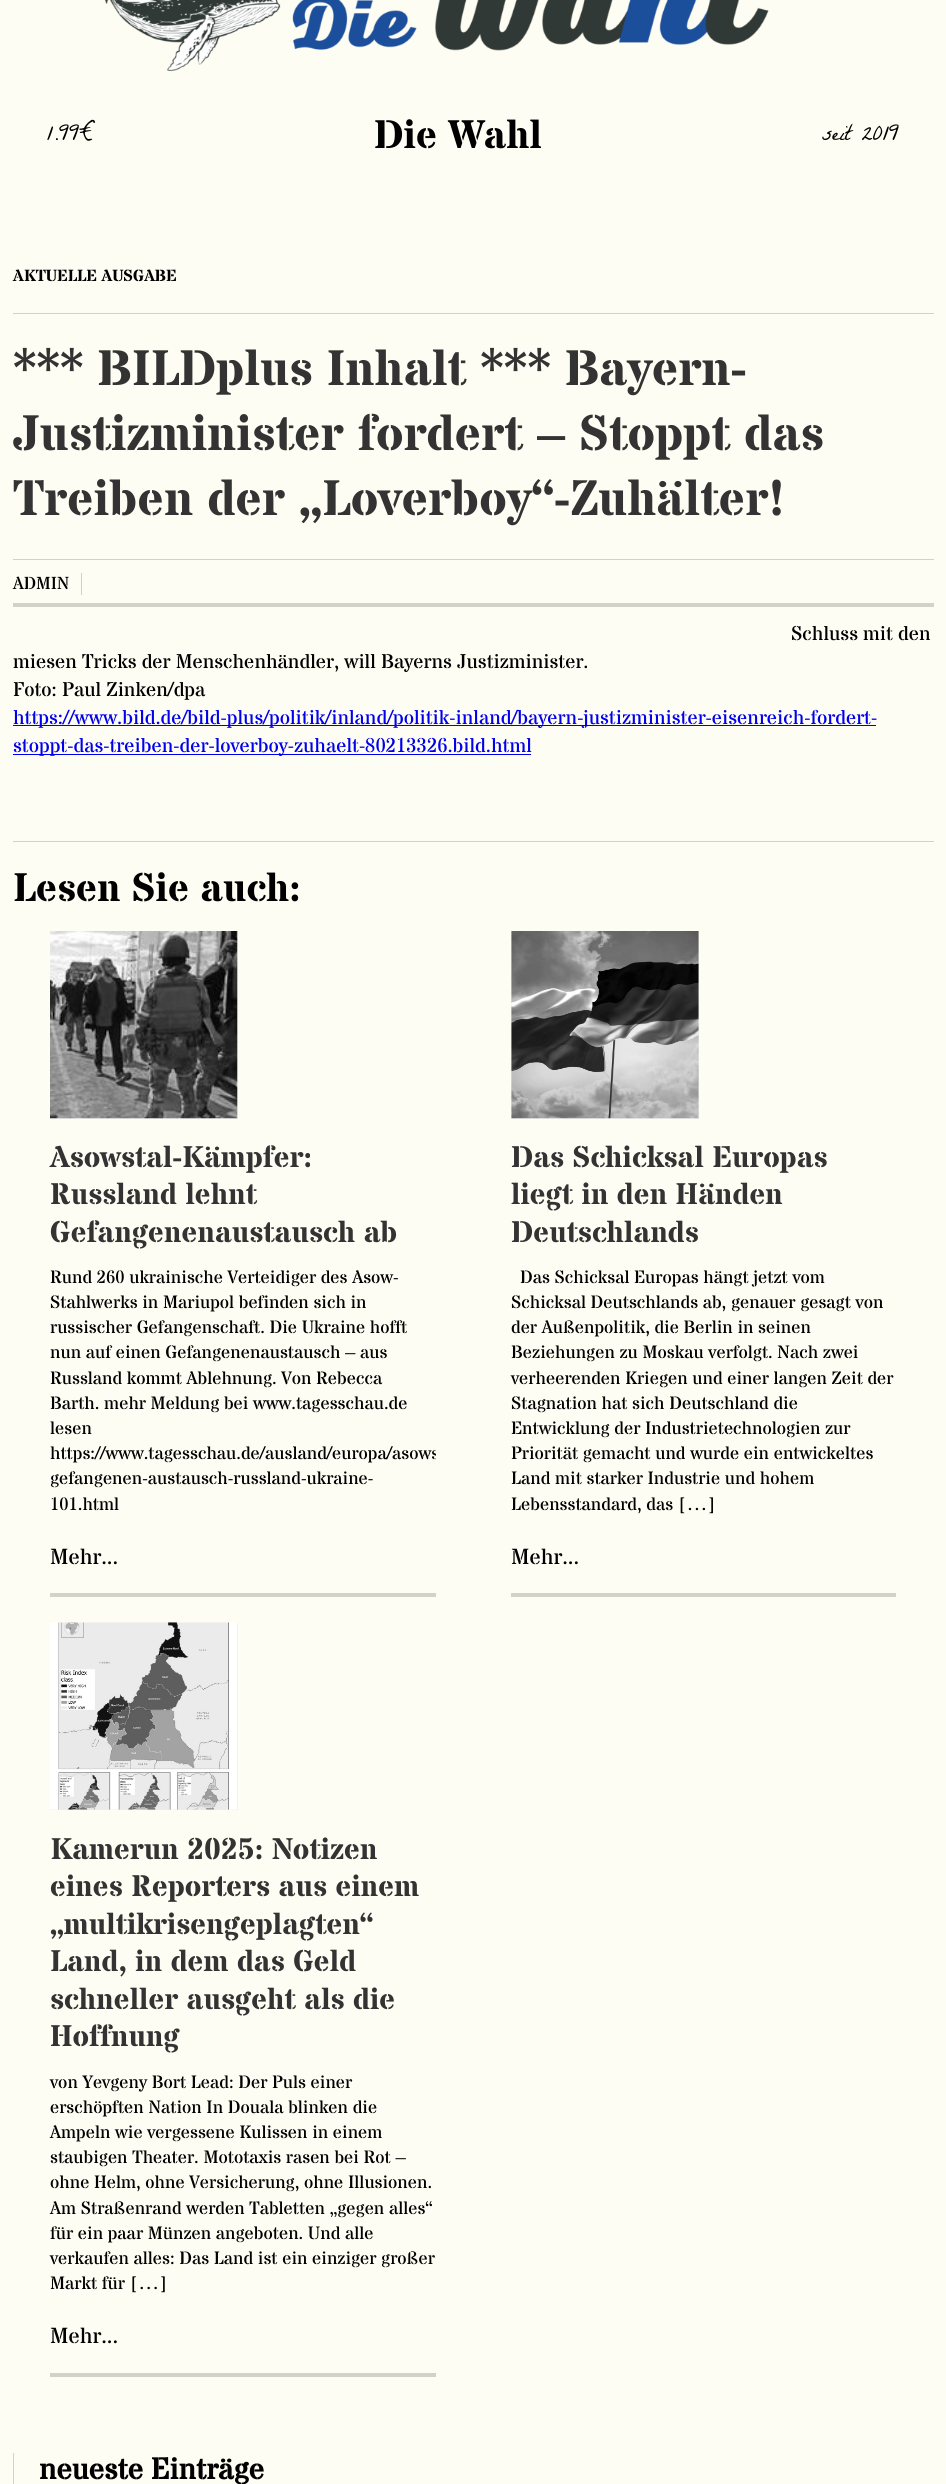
#include <cairo.h>
#include <math.h>
#include <stddef.h>


static void set_color(cairo_t *cr, unsigned color) {
    cairo_set_source_rgb(cr, (color >> 16) / 255.0, (color >> 8 & 255) / 255.0, (color & 255) / 255.0);
}

static void draw_text(cairo_t *cr, double x, double y, const char *s, const char *family, double size, int italic, int bold, unsigned color) {
    cairo_select_font_face(cr, family, italic ? CAIRO_FONT_SLANT_ITALIC : CAIRO_FONT_SLANT_NORMAL,
        bold ? CAIRO_FONT_WEIGHT_BOLD : CAIRO_FONT_WEIGHT_NORMAL);
    cairo_set_font_size(cr, size);
    set_color(cr, color);
    cairo_move_to(cr, x, y);
    cairo_show_text(cr, s);
}

static void fill_rect(cairo_t *cr, double x, double y, double w, double h, unsigned color) {
    set_color(cr, color);
    cairo_rectangle(cr, x, y, w, h);
    cairo_fill(cr);
}

static void draw_image(cairo_t *cr, const char *path, double x, double y, double w, double h) {
    cairo_surface_t *image = cairo_image_surface_create_from_png(path);
    cairo_save(cr);
    cairo_set_source_surface(cr, image, x, y);
    cairo_rectangle(cr, x, y, w, h);
    cairo_fill(cr);
    cairo_restore(cr);
    cairo_surface_destroy(image);
}

int main(void) {
    cairo_surface_t *surface = cairo_image_surface_create(CAIRO_FORMAT_RGB24, 946, 2484);
    cairo_t *cr = cairo_create(surface);
    cairo_font_options_t *options = cairo_font_options_create();
    cairo_font_options_set_hint_metrics(options, CAIRO_HINT_METRICS_OFF);
    cairo_font_options_set_hint_style(options, CAIRO_HINT_STYLE_NONE);
    cairo_set_font_options(cr, options);
    cairo_set_miter_limit(cr, 4);
    set_color(cr, 0xFEFDF3);
    cairo_paint(cr);
    draw_image(cr, "assets/img1.png", 104, 0, 665, 71);
    draw_text(cr, 47, 140, "1.99€", "La Belle Aurore", 22, 0, 0, 0x000000);
    draw_text(cr, 374, 148, "Die Wahl", "Stardos Stencil", 40, 0, 1, 0x000000);
    draw_text(cr, 822, 140, "seit 2019", "La Belle Aurore", 22, 0, 0, 0x000000);
    fill_rect(cr, 13, 313, 921, 1, 0xD3D2CA);
    draw_text(cr, 13, 281, "AKTUELLE AUSGABE", "Stardos Stencil", 16.25, 0, 1, 0x000000);
    draw_text(cr, 13, 385, "*** BILDplus Inhalt *** Bayern-", "Stardos Stencil", 50, 0, 1, 0x333333);
    cairo_save(cr);
    cairo_rectangle(cr, 13, 339, 921, 195);
    cairo_clip(cr);
    draw_text(cr, 13, 450, "Justizminister fordert – Stoppt das", "Stardos Stencil", 50, 0, 1, 0x333333);
    cairo_restore(cr);
    draw_text(cr, 13, 515, "Treiben der „Loverboy“-Zuhälter!", "Stardos Stencil", 50, 0, 1, 0x333333);
    fill_rect(cr, 13, 559, 921, 1, 0xD3D2CA);
    fill_rect(cr, 81, 573, 1, 22, 0xD3D2CA);
    draw_text(cr, 13, 589, "ADMIN", "Stardos Stencil", 17.5, 0, 0, 0x000000);
    fill_rect(cr, 13, 603, 921, 4, 0xD3D2CA);
    draw_text(cr, 791, 640, "Schluss mit den", "Stardos Stencil", 20, 0, 0, 0x000000);
    draw_text(cr, 13, 668, "miesen Tricks der Menschenhändler, will Bayerns Justizminister.", "Stardos Stencil", 20, 0, 0, 0x000000);
    draw_text(cr, 13, 696, "Foto: Paul Zinken/dpa", "Stardos Stencil", 20, 0, 0, 0x000000);
    fill_rect(cr, 13, 725, 863, 1, 0x0000EE);
    draw_text(cr, 13, 724, "https://www.bild.de/bild-plus/politik/inland/politik-inland/bayern-justizminister-eisenreich-fordert-", "Stardos Stencil", 20, 0, 0, 0x0000EE);
    fill_rect(cr, 13, 754, 518, 1, 0x0000EE);
    draw_text(cr, 13, 752, "stoppt-das-treiben-der-loverboy-zuhaelt-80213326.bild.html", "Stardos Stencil", 20, 0, 0, 0x0000EE);
    fill_rect(cr, 13, 841, 921, 1, 0xD3D2CA);
    draw_text(cr, 13, 901, "Lesen Sie auch:", "Stardos Stencil", 40, 0, 1, 0x000000);
    fill_rect(cr, 50, 931, 188, 188, 0xEFEFEF);
    draw_image(cr, "assets/img2.png", 50, 931, 188, 188);
    draw_text(cr, 50, 1167, "Asowstal-Kämpfer:", "Stardos Stencil", 30, 0, 1, 0x333333);
    draw_text(cr, 50, 1204, "Russland lehnt", "Stardos Stencil", 30, 0, 1, 0x333333);
    draw_text(cr, 50, 1242, "Gefangenenaustausch ab", "Stardos Stencil", 30, 0, 1, 0x333333);
    draw_text(cr, 50, 1283, "Rund 260 ukrainische Verteidiger des Asow-", "Stardos Stencil", 18, 0, 0, 0x000000);
    draw_text(cr, 50, 1308, "Stahlwerks in Mariupol befinden sich in", "Stardos Stencil", 18, 0, 0, 0x000000);
    draw_text(cr, 50, 1333, "russischer Gefangenschaft. Die Ukraine hofft", "Stardos Stencil", 18, 0, 0, 0x000000);
    draw_text(cr, 50, 1358, "nun auf einen Gefangenenaustausch – aus", "Stardos Stencil", 18, 0, 0, 0x000000);
    draw_text(cr, 50, 1384, "Russland kommt Ablehnung. Von Rebecca", "Stardos Stencil", 18, 0, 0, 0x000000);
    draw_text(cr, 50, 1409, "Barth. mehr Meldung bei www.tagesschau.de", "Stardos Stencil", 18, 0, 0, 0x000000);
    draw_text(cr, 50, 1434, "lesen", "Stardos Stencil", 18, 0, 0, 0x000000);
    cairo_save(cr);
    cairo_rectangle(cr, 50, 1265, 386, 265);
    cairo_clip(cr);
    draw_text(cr, 50, 1459, "https://www.tagesschau.de/ausland/europa/asows", "Stardos Stencil", 18, 0, 0, 0x000000);
    cairo_restore(cr);
    draw_text(cr, 50, 1484, "gefangenen-austausch-russland-ukraine-", "Stardos Stencil", 18, 0, 0, 0x000000);
    draw_text(cr, 50, 1510, "101.html", "Stardos Stencil", 18, 0, 0, 0x000000);
    draw_text(cr, 50, 1564, "Mehr...", "Stardos Stencil", 22, 0, 0, 0x000000);
    fill_rect(cr, 50, 1593, 386, 4, 0xD3D2CA);
    fill_rect(cr, 511, 931, 188, 188, 0xEFEFEF);
    draw_image(cr, "assets/img3.png", 511, 931, 188, 188);
    draw_text(cr, 511, 1167, "Das Schicksal Europas", "Stardos Stencil", 30, 0, 1, 0x333333);
    draw_text(cr, 511, 1204, "liegt in den Händen", "Stardos Stencil", 30, 0, 1, 0x333333);
    draw_text(cr, 511, 1242, "Deutschlands", "Stardos Stencil", 30, 0, 1, 0x333333);
    draw_text(cr, 520, 1283, "Das Schicksal Europas hängt jetzt vom", "Stardos Stencil", 18, 0, 0, 0x000000);
    draw_text(cr, 511, 1308, "Schicksal Deutschlands ab, genauer gesagt von", "Stardos Stencil", 18, 0, 0, 0x000000);
    draw_text(cr, 511, 1333, "der Außenpolitik, die Berlin in seinen", "Stardos Stencil", 18, 0, 0, 0x000000);
    draw_text(cr, 511, 1358, "Beziehungen zu Moskau verfolgt. Nach zwei", "Stardos Stencil", 18, 0, 0, 0x000000);
    draw_text(cr, 511, 1384, "verheerenden Kriegen und einer langen Zeit der", "Stardos Stencil", 18, 0, 0, 0x000000);
    draw_text(cr, 511, 1409, "Stagnation hat sich Deutschland die", "Stardos Stencil", 18, 0, 0, 0x000000);
    draw_text(cr, 511, 1434, "Entwicklung der Industrietechnologien zur", "Stardos Stencil", 18, 0, 0, 0x000000);
    draw_text(cr, 511, 1459, "Priorität gemacht und wurde ein entwickeltes", "Stardos Stencil", 18, 0, 0, 0x000000);
    draw_text(cr, 511, 1484, "Land mit starker Industrie und hohem", "Stardos Stencil", 18, 0, 0, 0x000000);
    draw_text(cr, 511, 1510, "Lebensstandard, das […]", "Stardos Stencil", 18, 0, 0, 0x000000);
    draw_text(cr, 511, 1564, "Mehr...", "Stardos Stencil", 22, 0, 0, 0x000000);
    fill_rect(cr, 511, 1593, 385, 4, 0xD3D2CA);
    fill_rect(cr, 50, 1623, 188, 187, 0xEFEFEF);
    draw_image(cr, "assets/img4.png", 50, 1622, 188, 188);
    draw_text(cr, 50, 1859, "Kamerun 2025: Notizen", "Stardos Stencil", 30, 0, 1, 0x333333);
    draw_text(cr, 50, 1896, "eines Reporters aus einem", "Stardos Stencil", 30, 0, 1, 0x333333);
    draw_text(cr, 50, 1934, "„multikrisengeplagten“", "Stardos Stencil", 30, 0, 1, 0x333333);
    draw_text(cr, 50, 1971, "Land, in dem das Geld", "Stardos Stencil", 30, 0, 1, 0x333333);
    draw_text(cr, 50, 2009, "schneller ausgeht als die", "Stardos Stencil", 30, 0, 1, 0x333333);
    draw_text(cr, 50, 2046, "Hoffnung", "Stardos Stencil", 30, 0, 1, 0x333333);
    draw_text(cr, 50, 2088, "von Yevgeny Bort Lead: Der Puls einer", "Stardos Stencil", 18, 0, 0, 0x000000);
    draw_text(cr, 50, 2113, "erschöpften Nation In Douala blinken die", "Stardos Stencil", 18, 0, 0, 0x000000);
    draw_text(cr, 50, 2138, "Ampeln wie vergessene Kulissen in einem", "Stardos Stencil", 18, 0, 0, 0x000000);
    draw_text(cr, 50, 2163, "staubigen Theater. Mototaxis rasen bei Rot –", "Stardos Stencil", 18, 0, 0, 0x000000);
    draw_text(cr, 50, 2188, "ohne Helm, ohne Versicherung, ohne Illusionen.", "Stardos Stencil", 18, 0, 0, 0x000000);
    draw_text(cr, 50, 2214, "Am Straßenrand werden Tabletten „gegen alles“", "Stardos Stencil", 18, 0, 0, 0x000000);
    draw_text(cr, 50, 2239, "für ein paar Münzen angeboten. Und alle", "Stardos Stencil", 18, 0, 0, 0x000000);
    draw_text(cr, 50, 2264, "verkaufen alles: Das Land ist ein einziger großer", "Stardos Stencil", 18, 0, 0, 0x000000);
    draw_text(cr, 50, 2289, "Markt für […]", "Stardos Stencil", 18, 0, 0, 0x000000);
    draw_text(cr, 50, 2343, "Mehr...", "Stardos Stencil", 22, 0, 0, 0x000000);
    fill_rect(cr, 50, 2373, 386, 4, 0xD3D2CA);
    fill_rect(cr, 13, 2453, 1, 31, 0xD3D2CA);
    draw_text(cr, 39, 2479, "neueste Einträge", "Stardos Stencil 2", 30, 0, 1, 0x000000);
    cairo_surface_write_to_png(surface, "output.png");
    cairo_font_options_destroy(options);
    cairo_destroy(cr);
    cairo_surface_destroy(surface);
    return 0;
}
